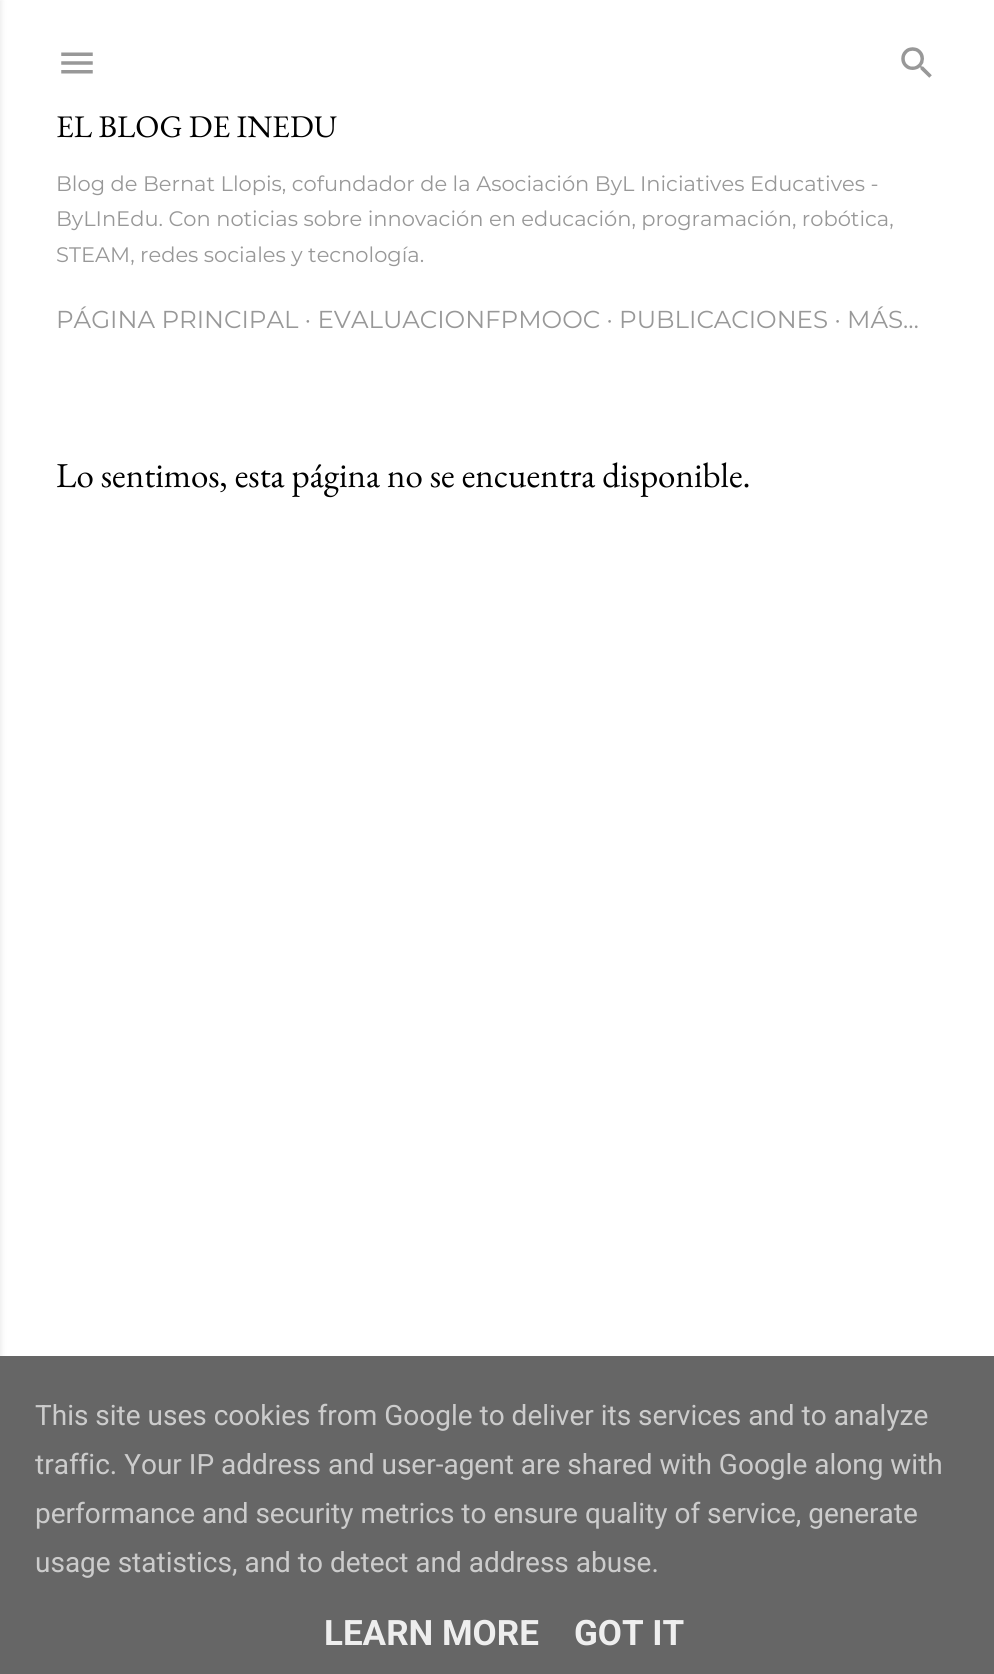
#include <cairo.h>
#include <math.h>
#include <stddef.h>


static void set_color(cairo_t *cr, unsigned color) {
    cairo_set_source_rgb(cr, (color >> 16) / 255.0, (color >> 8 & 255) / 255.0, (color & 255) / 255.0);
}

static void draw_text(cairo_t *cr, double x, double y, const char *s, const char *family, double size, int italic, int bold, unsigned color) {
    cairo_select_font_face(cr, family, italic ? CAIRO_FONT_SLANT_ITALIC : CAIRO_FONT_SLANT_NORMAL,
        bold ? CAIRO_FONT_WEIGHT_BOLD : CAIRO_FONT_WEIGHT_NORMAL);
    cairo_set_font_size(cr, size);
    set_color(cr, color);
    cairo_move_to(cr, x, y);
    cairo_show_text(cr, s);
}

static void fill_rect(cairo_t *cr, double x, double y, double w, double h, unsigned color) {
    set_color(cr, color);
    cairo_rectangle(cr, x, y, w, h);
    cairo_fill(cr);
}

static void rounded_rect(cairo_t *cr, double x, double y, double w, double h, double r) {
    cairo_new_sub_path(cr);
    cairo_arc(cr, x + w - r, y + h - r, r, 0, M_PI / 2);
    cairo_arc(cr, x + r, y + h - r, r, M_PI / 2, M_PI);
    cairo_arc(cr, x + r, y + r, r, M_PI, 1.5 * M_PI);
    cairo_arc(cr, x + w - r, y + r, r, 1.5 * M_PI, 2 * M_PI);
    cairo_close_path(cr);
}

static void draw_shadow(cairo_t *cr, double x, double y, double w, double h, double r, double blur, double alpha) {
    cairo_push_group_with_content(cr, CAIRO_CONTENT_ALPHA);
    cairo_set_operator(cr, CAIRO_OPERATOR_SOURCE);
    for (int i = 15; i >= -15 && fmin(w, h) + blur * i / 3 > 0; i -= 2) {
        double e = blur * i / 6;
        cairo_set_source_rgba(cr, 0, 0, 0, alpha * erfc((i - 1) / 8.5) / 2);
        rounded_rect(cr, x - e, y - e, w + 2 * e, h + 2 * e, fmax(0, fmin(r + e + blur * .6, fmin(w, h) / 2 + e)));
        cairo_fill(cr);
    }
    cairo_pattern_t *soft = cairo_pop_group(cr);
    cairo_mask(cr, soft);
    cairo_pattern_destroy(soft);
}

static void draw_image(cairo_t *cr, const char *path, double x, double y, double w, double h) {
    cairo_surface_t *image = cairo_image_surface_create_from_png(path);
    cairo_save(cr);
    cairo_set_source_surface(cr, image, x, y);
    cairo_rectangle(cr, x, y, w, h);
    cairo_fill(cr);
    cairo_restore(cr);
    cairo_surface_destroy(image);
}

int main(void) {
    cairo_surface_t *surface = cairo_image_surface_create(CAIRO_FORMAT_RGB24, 994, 1674);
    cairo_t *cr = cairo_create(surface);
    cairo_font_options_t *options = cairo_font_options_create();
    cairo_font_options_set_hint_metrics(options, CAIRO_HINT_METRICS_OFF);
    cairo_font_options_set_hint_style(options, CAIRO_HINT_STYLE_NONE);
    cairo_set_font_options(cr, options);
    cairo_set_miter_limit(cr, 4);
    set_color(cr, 0xFFFFFF);
    cairo_paint(cr);
    set_color(cr, 0x404040);
    draw_shadow(cr, -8, 0, 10, 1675, 0, 2.5, 0.1);
    draw_image(cr, "assets/img1.png", 61, 52, 32, 22);
    draw_image(cr, "assets/img2.png", 901, 47, 31, 31);
    draw_text(cr, 56, 137, "EL BLOG DE INEDU", "EB Garamond", 31.5, 0, 0, 0x000000);
    draw_text(cr, 56, 191, "Blog de Bernat Llopis, cofundador de la Asociación ByL Iniciatives Educatives -", "Montserrat", 21, 0, 0, 0x989898);
    draw_text(cr, 56, 226, "ByLInEdu. Con noticias sobre innovación en educación, programación, robótica,", "Montserrat", 21, 0, 0, 0x989898);
    draw_text(cr, 56, 262, "STEAM, redes sociales y tecnología.", "Montserrat", 21, 0, 0, 0x989898);
    draw_text(cr, 56, 328, "PÁGINA PRINCIPAL · EVALUACIONFPMOOC · PUBLICACIONES · MÁS…", "Montserrat", 24.5, 0, 0, 0x989898);
    draw_text(cr, 56, 487, "Lo sentimos, esta página no se encuentra disponible.", "EB Garamond", 35, 0, 0, 0x000000);
    fill_rect(cr, 0, 1356, 994, 318, 0x666666);
    draw_text(cr, 35, 1425, "This site uses cookies from Google to deliver its services and to analyze", "Roboto", 28, 0, 0, 0xCCCCCC);
    draw_text(cr, 35, 1474, "traffic. Your IP address and user-agent are shared with Google along with", "Roboto", 28, 0, 0, 0xCCCCCC);
    draw_text(cr, 35, 1523, "performance and security metrics to ensure quality of service, generate", "Roboto", 28, 0, 0, 0xCCCCCC);
    draw_text(cr, 35, 1572, "usage statistics, and to detect and address abuse.", "Roboto", 28, 0, 0, 0xCCCCCC);
    draw_text(cr, 324, 1645, "LEARN MORE", "Roboto", 35, 0, 1, 0xEEEEEE);
    draw_text(cr, 574, 1645, "GOT IT", "Roboto", 35, 0, 1, 0xEEEEEE);
    cairo_surface_write_to_png(surface, "output.png");
    cairo_font_options_destroy(options);
    cairo_destroy(cr);
    cairo_surface_destroy(surface);
    return 0;
}
